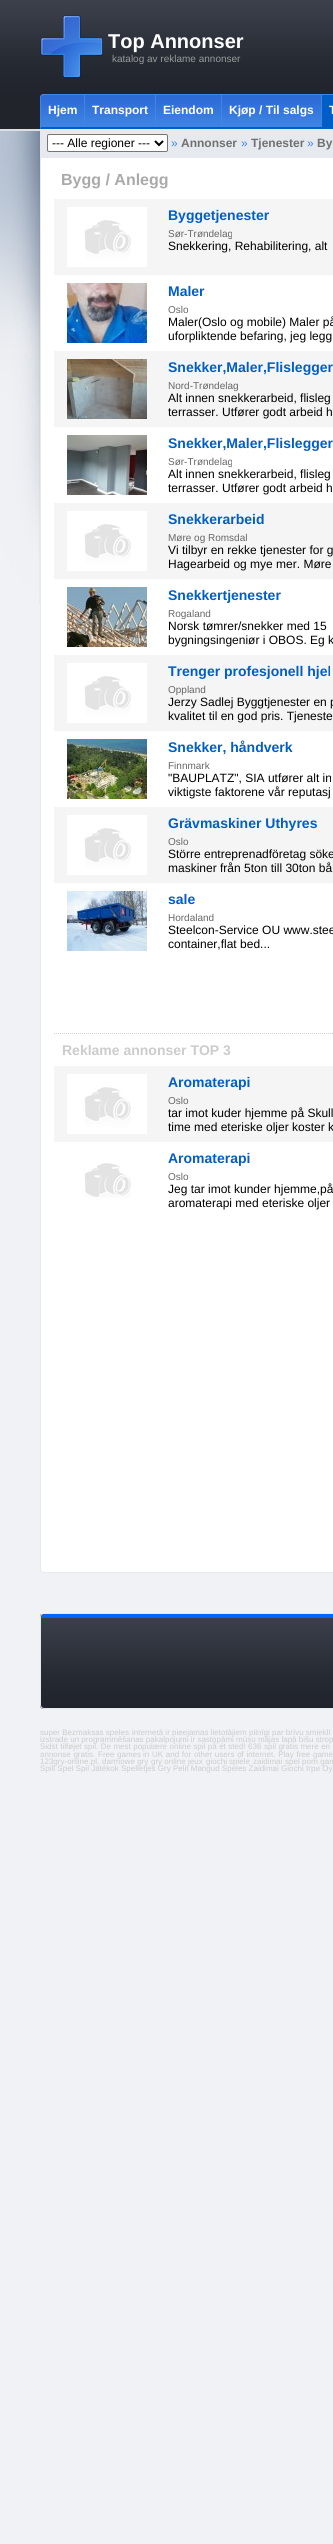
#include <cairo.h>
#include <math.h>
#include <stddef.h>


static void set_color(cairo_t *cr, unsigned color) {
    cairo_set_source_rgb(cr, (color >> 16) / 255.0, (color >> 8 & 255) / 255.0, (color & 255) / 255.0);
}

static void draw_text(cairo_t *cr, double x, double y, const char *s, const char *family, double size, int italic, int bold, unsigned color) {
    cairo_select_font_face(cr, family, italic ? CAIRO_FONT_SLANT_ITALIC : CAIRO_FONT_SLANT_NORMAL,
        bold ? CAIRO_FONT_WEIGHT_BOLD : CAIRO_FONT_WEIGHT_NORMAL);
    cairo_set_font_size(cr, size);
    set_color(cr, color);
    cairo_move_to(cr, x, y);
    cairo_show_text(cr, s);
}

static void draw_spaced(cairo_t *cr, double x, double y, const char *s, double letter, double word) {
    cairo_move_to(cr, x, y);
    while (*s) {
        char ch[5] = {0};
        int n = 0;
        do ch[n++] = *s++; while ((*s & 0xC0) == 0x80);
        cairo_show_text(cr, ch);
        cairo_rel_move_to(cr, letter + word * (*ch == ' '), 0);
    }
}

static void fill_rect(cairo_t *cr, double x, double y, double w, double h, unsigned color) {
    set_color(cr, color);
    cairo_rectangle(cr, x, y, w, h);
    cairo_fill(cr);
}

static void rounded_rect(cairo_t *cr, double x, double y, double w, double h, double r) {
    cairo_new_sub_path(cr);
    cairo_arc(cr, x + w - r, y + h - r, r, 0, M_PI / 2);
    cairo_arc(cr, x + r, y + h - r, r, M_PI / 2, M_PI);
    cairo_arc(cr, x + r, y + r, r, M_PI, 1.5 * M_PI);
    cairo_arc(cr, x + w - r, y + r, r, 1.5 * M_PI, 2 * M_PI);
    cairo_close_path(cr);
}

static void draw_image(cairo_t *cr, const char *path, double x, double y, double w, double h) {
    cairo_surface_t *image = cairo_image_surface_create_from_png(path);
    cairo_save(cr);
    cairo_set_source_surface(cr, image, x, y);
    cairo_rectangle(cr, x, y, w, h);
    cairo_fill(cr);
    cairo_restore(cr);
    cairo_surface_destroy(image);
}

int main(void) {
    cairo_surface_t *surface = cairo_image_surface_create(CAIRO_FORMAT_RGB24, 333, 2544);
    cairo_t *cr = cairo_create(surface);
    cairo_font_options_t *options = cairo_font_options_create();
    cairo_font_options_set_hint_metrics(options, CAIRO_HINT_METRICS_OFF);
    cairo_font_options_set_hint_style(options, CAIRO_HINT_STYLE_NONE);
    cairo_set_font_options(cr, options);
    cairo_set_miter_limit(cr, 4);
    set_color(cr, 0xF1F2F6);
    cairo_paint(cr);
    draw_image(cr, "assets/img1.png", 0, 0, 333, 131);
    draw_image(cr, "assets/img2.png", 0, 131, 40, 473);
    draw_image(cr, "assets/img3.png", 40, 15, 63, 63);
    draw_text(cr, 108, 48, "Top Annonser", "Liberation Sans", 20, 0, 1, 0xFFFFFF);
    draw_text(cr, 112, 62, "katalog av reklame annonser", "Liberation Sans", 10, 0, 0, 0x999999);
    draw_image(cr, "assets/img4.png", 40, 94, 281, 35);
    set_color(cr, 0x4086E5);
    cairo_new_path(cr);
    cairo_move_to(cr, 44, 94);
    cairo_line_to(cr, 41, 95);
    cairo_line_to(cr, 42, 96);
    cairo_line_to(cr, 44, 95);
    cairo_line_to(cr, 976, 95);
    cairo_line_to(cr, 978, 96);
    cairo_line_to(cr, 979, 95);
    cairo_line_to(cr, 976, 94);
    cairo_close_path(cr);
    cairo_fill(cr);
    set_color(cr, 0x025EC7);
    cairo_new_path(cr);
    cairo_move_to(cr, 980, 129);
    cairo_line_to(cr, 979, 127);
    cairo_line_to(cr, 41, 127);
    cairo_line_to(cr, 40, 129);
    cairo_close_path(cr);
    cairo_fill(cr);
    set_color(cr, 0x4086E5);
    cairo_new_path(cr);
    cairo_move_to(cr, 40, 129);
    cairo_line_to(cr, 41, 127);
    cairo_line_to(cr, 41, 98);
    cairo_curve_to(cr, 41, 97, 41, 96, 42, 96);
    cairo_line_to(cr, 41, 95);
    cairo_curve_to(cr, 40.5, 96, 40, 97, 40, 98);
    cairo_close_path(cr);
    cairo_fill(cr);
    fill_rect(cr, 84, 95, 1, 32, 0x4086E5);
    draw_text(cr, 48, 114, "Hjem", "Liberation Sans", 12, 0, 1, 0xFFFFFF);
    fill_rect(cr, 155, 95, 1, 32, 0x4086E5);
    draw_text(cr, 92, 114, "Transport", "Liberation Sans", 12, 0, 1, 0xFFFFFF);
    fill_rect(cr, 221, 95, 1, 32, 0x4086E5);
    draw_text(cr, 163, 114, "Eiendom", "Liberation Sans", 12, 0, 1, 0xFFFFFF);
    fill_rect(cr, 321, 95, 1, 32, 0x4086E5);
    draw_text(cr, 229, 114, "Kjøp / Til salgs", "Liberation Sans", 12, 0, 1, 0xFFFFFF);
    fill_rect(cr, 322, 95, 11, 32, 0x025EC7);
    draw_text(cr, 329, 114, "T", "Liberation Sans", 12, 0, 1, 0xFFFFFF);
    fill_rect(cr, 40, 129, 293, 28, 0xE6E9EE);
    set_color(cr, 0xFFFFFF);
    rounded_rect(cr, 47.5, 134.5, 120, 17, 1.5);
    cairo_fill_preserve(cr);
    set_color(cr, 0x767676);
    cairo_set_line_width(cr, 1);
    cairo_stroke(cr);
    cairo_new_path(cr);
    cairo_move_to(cr, 155, 141);
    cairo_line_to(cr, 159, 145);
    cairo_line_to(cr, 163, 141);
    set_color(cr, 0x000000);
    cairo_set_line_width(cr, 2);
    cairo_stroke(cr);
    draw_text(cr, 52, 147, "--- Alle regioner ---", "Liberation Sans", 12, 0, 0, 0x000000);
    draw_text(cr, 171, 147, "»", "Liberation Sans", 12, 0, 0, 0x4086E5);
    draw_text(cr, 181, 147, "Annonser", "Liberation Sans", 12, 0, 1, 0x707070);
    draw_text(cr, 241, 147, "»", "Liberation Sans", 12, 0, 0, 0x4086E5);
    draw_text(cr, 251, 147, "Tjenester", "Liberation Sans", 12, 0, 1, 0x707070);
    draw_text(cr, 307, 147, "»", "Liberation Sans", 12, 0, 0, 0x4086E5);
    draw_text(cr, 317, 147, "By", "Liberation Sans", 12, 0, 1, 0x707070);
    set_color(cr, 0xFFFFFF);
    cairo_new_path(cr);
    cairo_move_to(cr, 40.5, 157.5);
    cairo_line_to(cr, 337.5, 157.5);
    cairo_line_to(cr, 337.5, 1569);
    cairo_curve_to(cr, 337.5, 1571, 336, 1572.5, 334, 1572.5);
    cairo_line_to(cr, 44, 1572.5);
    cairo_curve_to(cr, 42, 1572.5, 40.5, 1571, 40.5, 1569);
    cairo_close_path(cr);
    cairo_fill_preserve(cr);
    set_color(cr, 0xE6E9EE);
    cairo_set_line_width(cr, 1);
    cairo_stroke(cr);
    draw_text(cr, 61, 185, "Bygg / Anlegg", "Liberation Sans", 16, 0, 1, 0xAAAAAA);
    fill_rect(cr, 54, 199, 279, 76, 0xF5F5F5);
    draw_image(cr, "assets/img5.png", 67, 207, 80, 60);
    draw_text(cr, 168, 220, "Byggetjenester", "Liberation Sans", 14, 0, 1, 0x025EC7);
    draw_text(cr, 168, 237, "Sør-Trøndelag", "Liberation Sans", 10, 0, 0, 0x666666);
    draw_text(cr, 168, 250, "Snekkering, Rehabilitering, alt", "Liberation Sans", 12, 0, 0, 0x000000);
    draw_image(cr, "assets/img6.png", 67, 283, 80, 60);
    draw_text(cr, 168, 296, "Maler", "Liberation Sans", 14, 0, 1, 0x025EC7);
    draw_text(cr, 168, 313, "Oslo", "Liberation Sans", 10, 0, 0, 0x666666);
    draw_text(cr, 168, 326, "Maler(Oslo og mobile) Maler på", "Liberation Sans", 12, 0, 0, 0x000000);
    draw_text(cr, 168, 340, "uforpliktende befaring, jeg legg", "Liberation Sans", 12, 0, 0, 0x000000);
    fill_rect(cr, 54, 351, 279, 76, 0xF5F5F5);
    draw_image(cr, "assets/img7.png", 67, 359, 80, 60);
    draw_text(cr, 168, 372, "Snekker,Maler,Flislegger", "Liberation Sans", 14, 0, 1, 0x025EC7);
    draw_text(cr, 168, 389, "Nord-Trøndelag", "Liberation Sans", 10, 0, 0, 0x666666);
    draw_text(cr, 168, 402, "Alt innen snekkerarbeid, flisleg", "Liberation Sans", 12, 0, 0, 0x000000);
    draw_text(cr, 168, 416, "terrasser. Utfører godt arbeid h", "Liberation Sans", 12, 0, 0, 0x000000);
    draw_image(cr, "assets/img8.png", 67, 435, 80, 60);
    draw_text(cr, 168, 448, "Snekker,Maler,Flislegger", "Liberation Sans", 14, 0, 1, 0x025EC7);
    draw_text(cr, 168, 465, "Sør-Trøndelag", "Liberation Sans", 10, 0, 0, 0x666666);
    draw_text(cr, 168, 478, "Alt innen snekkerarbeid, flisleg", "Liberation Sans", 12, 0, 0, 0x000000);
    draw_text(cr, 168, 492, "terrasser. Utfører godt arbeid h", "Liberation Sans", 12, 0, 0, 0x000000);
    fill_rect(cr, 54, 503, 279, 76, 0xF5F5F5);
    draw_image(cr, "assets/img5.png", 67, 511, 80, 60);
    draw_text(cr, 168, 524, "Snekkerarbeid", "Liberation Sans", 14, 0, 1, 0x025EC7);
    draw_text(cr, 168, 541, "Møre og Romsdal", "Liberation Sans", 10, 0, 0, 0x666666);
    draw_text(cr, 168, 554, "Vi tilbyr en rekke tjenester for g", "Liberation Sans", 12, 0, 0, 0x000000);
    draw_text(cr, 168, 568, "Hagearbeid og mye mer. Møre", "Liberation Sans", 12, 0, 0, 0x000000);
    draw_image(cr, "assets/img9.png", 67, 587, 80, 60);
    draw_text(cr, 168, 600, "Snekkertjenester", "Liberation Sans", 14, 0, 1, 0x025EC7);
    draw_text(cr, 168, 617, "Rogaland", "Liberation Sans", 10, 0, 0, 0x666666);
    draw_text(cr, 168, 630, "Norsk tømrer/snekker med 15", "Liberation Sans", 12, 0, 0, 0x000000);
    draw_text(cr, 168, 644, "bygningsingeniør i OBOS. Eg k", "Liberation Sans", 12, 0, 0, 0x000000);
    fill_rect(cr, 54, 655, 279, 76, 0xF5F5F5);
    draw_image(cr, "assets/img5.png", 67, 663, 80, 60);
    draw_text(cr, 168, 676, "Trenger profesjonell hjel", "Liberation Sans", 14, 0, 1, 0x025EC7);
    draw_text(cr, 168, 693, "Oppland", "Liberation Sans", 10, 0, 0, 0x666666);
    draw_text(cr, 168, 706, "Jerzy Sadlej Byggtjenester en p", "Liberation Sans", 12, 0, 0, 0x000000);
    draw_text(cr, 168, 720, "kvalitet til en god pris. Tjeneste", "Liberation Sans", 12, 0, 0, 0x000000);
    draw_image(cr, "assets/img10.png", 67, 739, 80, 60);
    draw_text(cr, 168, 752, "Snekker, håndverk", "Liberation Sans", 14, 0, 1, 0x025EC7);
    draw_text(cr, 168, 769, "Finnmark", "Liberation Sans", 10, 0, 0, 0x666666);
    draw_text(cr, 168, 782, "\"BAUPLATZ\", SIA utfører alt in", "Liberation Sans", 12, 0, 0, 0x000000);
    draw_text(cr, 168, 796, "viktigste faktorene vår reputasj", "Liberation Sans", 12, 0, 0, 0x000000);
    fill_rect(cr, 54, 807, 279, 76, 0xF5F5F5);
    draw_image(cr, "assets/img5.png", 67, 815, 80, 60);
    draw_text(cr, 168, 828, "Grävmaskiner Uthyres", "Liberation Sans", 14, 0, 1, 0x025EC7);
    draw_text(cr, 168, 845, "Oslo", "Liberation Sans", 10, 0, 0, 0x666666);
    draw_text(cr, 168, 858, "Större entreprenadföretag söke", "Liberation Sans", 12, 0, 0, 0x000000);
    draw_text(cr, 168, 872, "maskiner från 5ton till 30ton bå", "Liberation Sans", 12, 0, 0, 0x000000);
    draw_image(cr, "assets/img11.png", 67, 891, 80, 60);
    draw_text(cr, 168, 904, "sale", "Liberation Sans", 14, 0, 1, 0x025EC7);
    draw_text(cr, 168, 921, "Hordaland", "Liberation Sans", 10, 0, 0, 0x666666);
    draw_text(cr, 168, 934, "Steelcon-Service OU www.stee", "Liberation Sans", 12, 0, 0, 0x000000);
    draw_text(cr, 168, 948, "container,flat bed...", "Liberation Sans", 12, 0, 0, 0x000000);
    cairo_new_path(cr);
    cairo_move_to(cr, 54, 1033.5);
    cairo_line_to(cr, 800, 1033.5);
    set_color(cr, 0xD2D2D2);
    cairo_set_dash(cr, (double[]){1, 1}, 2, 0);
    cairo_stroke(cr);
    draw_text(cr, 62, 1055, "Reklame annonser TOP 3", "Liberation Sans", 14, 0, 1, 0xCCCCCC);
    fill_rect(cr, 54, 1066, 279, 76, 0xF5F5F5);
    draw_image(cr, "assets/img5.png", 67, 1074, 80, 60);
    draw_text(cr, 168, 1087, "Aromaterapi", "Liberation Sans", 14, 0, 1, 0x025EC7);
    draw_text(cr, 168, 1104, "Oslo", "Liberation Sans", 10, 0, 0, 0x666666);
    draw_text(cr, 168, 1117, "tar imot kuder hjemme på Skull", "Liberation Sans", 12, 0, 0, 0x000000);
    draw_text(cr, 168, 1131, "time med eteriske oljer koster k", "Liberation Sans", 12, 0, 0, 0x000000);
    draw_image(cr, "assets/img12.png", 84, 1163, 47, 35);
    draw_text(cr, 168, 1163, "Aromaterapi", "Liberation Sans", 14, 0, 1, 0x025EC7);
    draw_text(cr, 168, 1180, "Oslo", "Liberation Sans", 10, 0, 0, 0x666666);
    draw_text(cr, 168, 1193, "Jeg tar imot kunder hjemme,på", "Liberation Sans", 12, 0, 0, 0x000000);
    draw_text(cr, 168, 1207, "aromaterapi med eteriske oljer", "Liberation Sans", 12, 0, 0, 0x000000);
    draw_image(cr, "assets/img13.png", 40, 1614, 293, 95);
    rounded_rect(cr, 40.5, 1613.5, 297, 95, 3.5);
    set_color(cr, 0xE6E9EE);
    cairo_set_dash(cr, NULL, 0, 0);
    cairo_stroke(cr);
    set_color(cr, 0x0066FF);
    cairo_new_path(cr);
    cairo_move_to(cr, 45, 1614);
    cairo_line_to(cr, 333, 1614);
    cairo_curve_to(cr, 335, 1614, 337, 1616, 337, 1618);
    cairo_line_to(cr, 41, 1618);
    cairo_curve_to(cr, 41, 1616, 43, 1614, 45, 1614);
    cairo_close_path(cr);
    cairo_fill(cr);
    draw_text(cr, 40, 1735, "super Bezmaksas speles", "Liberation Sans", 8, 0, 0, 0xCCCCCC);
    draw_text(cr, 132, 1735, "internetā ir pieejamas lietotājiem pilnīgi par brīvu smieklī", "Liberation Sans", 8, 0, 0, 0xCCCCCC);
    draw_text(cr, 40, 1742, "izstrade un programmēšanas pakalpojumi ir sastopāmi mūsu mājas lapā bišu strop", "Liberation Sans", 8, 0, 0, 0xCCCCCC);
    draw_spaced(cr, 40, 1749, "Sidst tilføjet", 0, 0.25);
    draw_text(cr, 84, 1749, "spil", "Liberation Sans", 8, 0, 0, 0xCCCCCC);
    draw_spaced(cr, 96, 1749, ". De mest populære online spil på ét sted! 636 spil gratis mere en", 0, 0.25);
    draw_spaced(cr, 40, 1757, "annonse gratis.", 0, 0.5);
    draw_text(cr, 98, 1757, "Free", "Liberation Sans", 8, 0, 0, 0xCCCCCC);
    draw_text(cr, 117, 1757, "games", "Liberation Sans", 8, 0, 0, 0xCCCCCC);
    draw_spaced(cr, 143, 1757, "in UK and for other users of internet. Play free game", 0, 0.5);
    draw_text(cr, 40, 1764, "123gry-online.pl.", "Liberation Sans", 8, 0, 0, 0xCCCCCC);
    draw_text(cr, 102, 1764, "darmowe gry", "Liberation Sans", 8, 0, 0, 0xCCCCCC);
    draw_text(cr, 151, 1764, "gry online", "Liberation Sans", 8, 0, 0, 0xCCCCCC);
    draw_text(cr, 188, 1764, "jeux", "Liberation Sans", 8, 0, 0, 0xCCCCCC);
    draw_text(cr, 206, 1764, "giochi", "Liberation Sans", 8, 0, 0, 0xCCCCCC);
    draw_text(cr, 229, 1764, "spiele", "Liberation Sans", 8, 0, 0, 0xCCCCCC);
    draw_text(cr, 253, 1764, "zaidimai", "Liberation Sans", 8, 0, 0, 0xCCCCCC);
    draw_text(cr, 285, 1764, "spel", "Liberation Sans", 8, 0, 0, 0xCCCCCC);
    draw_text(cr, 302, 1764, "porn gam", "Liberation Sans", 8, 0, 0, 0xCCCCCC);
    draw_text(cr, 40, 1771, "Spill Spel Spil Játékok Spelletjes Gry Pelit Mangud Speles Zaidimai Giochi Ігри Oy", "Liberation Sans", 8, 0, 0, 0xCCCCCC);
    cairo_surface_write_to_png(surface, "output.png");
    cairo_font_options_destroy(options);
    cairo_destroy(cr);
    cairo_surface_destroy(surface);
    return 0;
}
